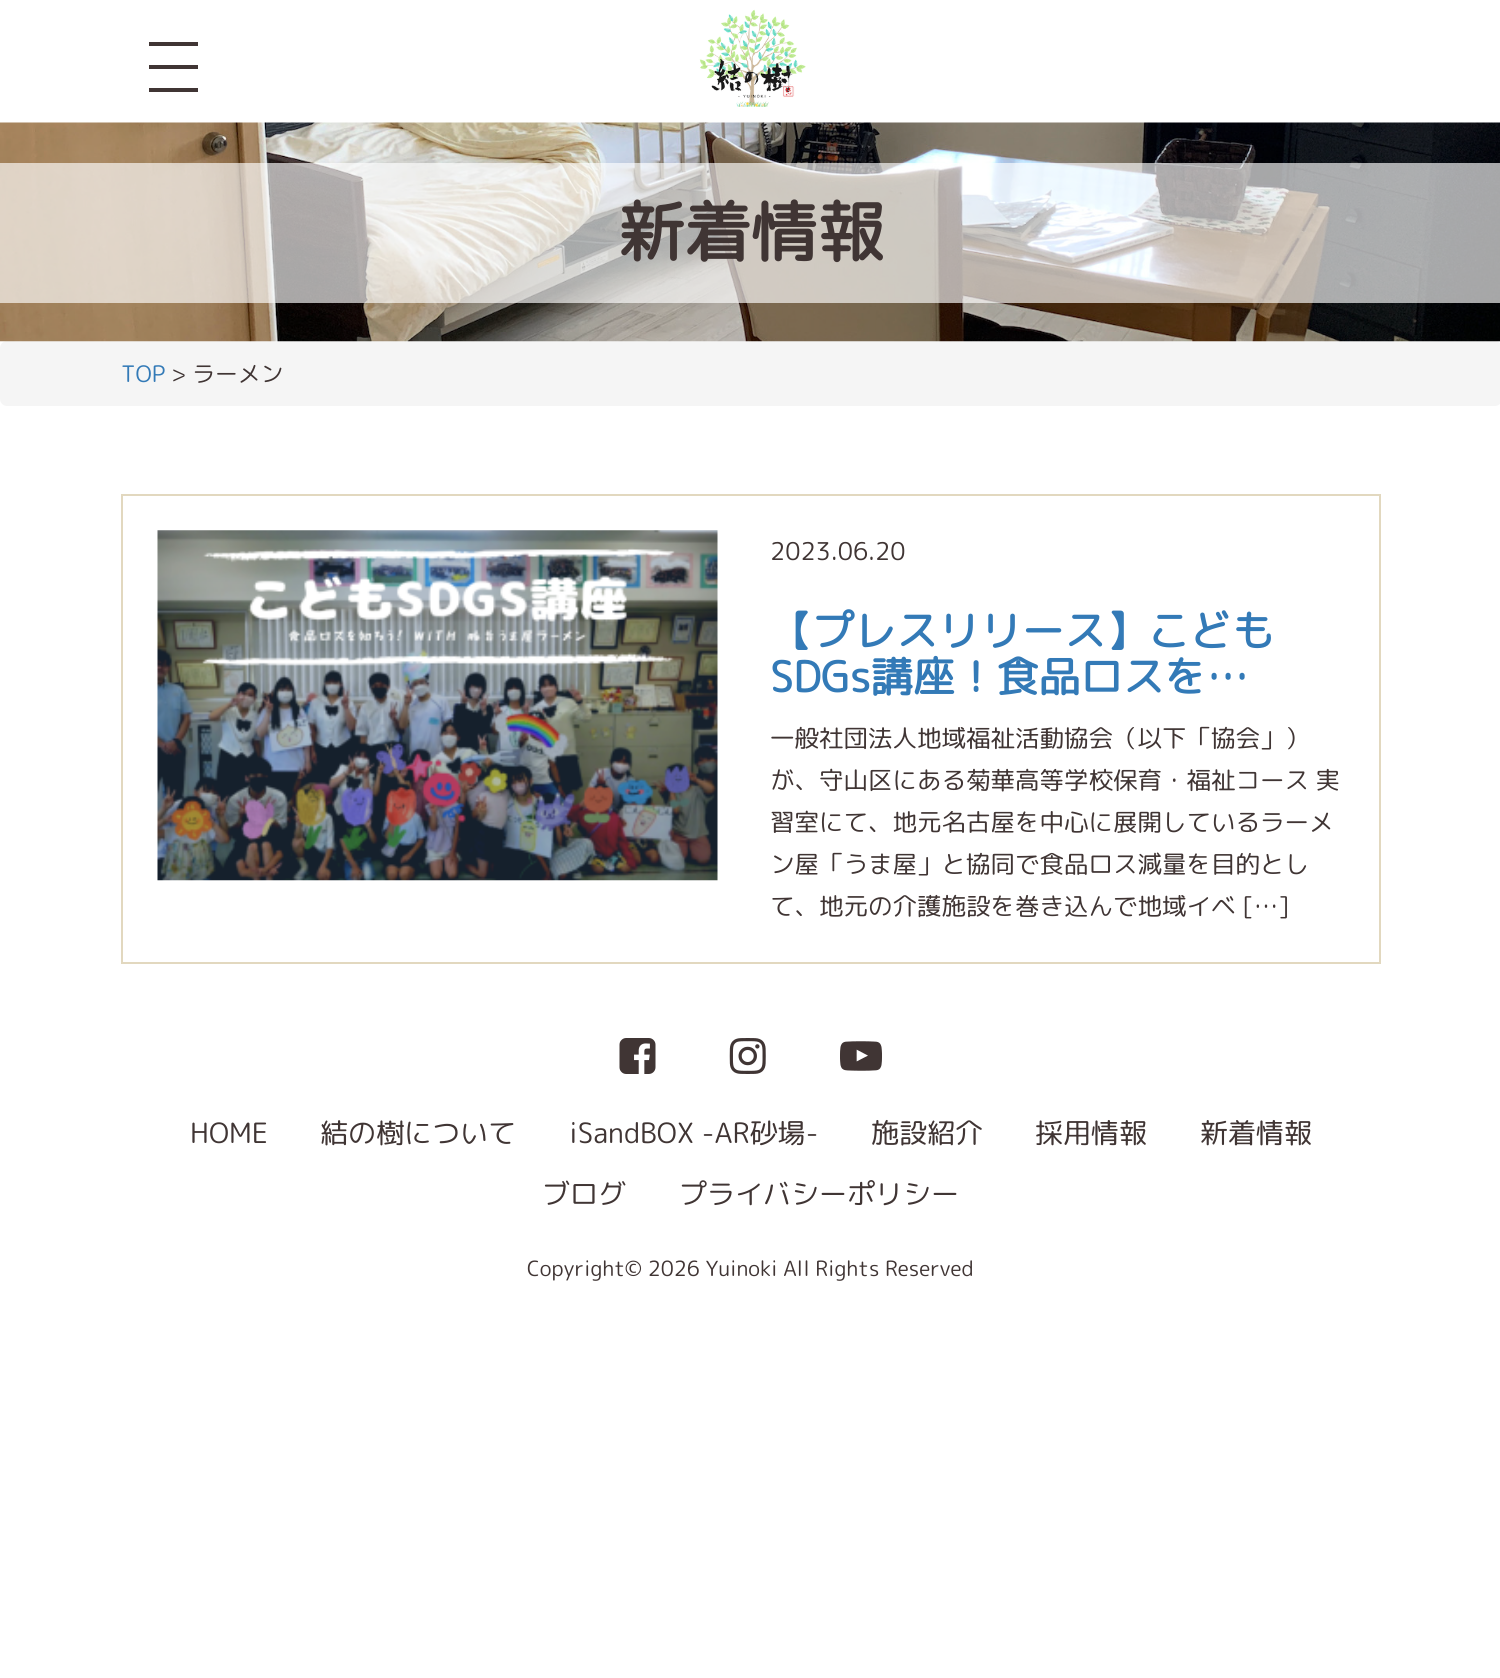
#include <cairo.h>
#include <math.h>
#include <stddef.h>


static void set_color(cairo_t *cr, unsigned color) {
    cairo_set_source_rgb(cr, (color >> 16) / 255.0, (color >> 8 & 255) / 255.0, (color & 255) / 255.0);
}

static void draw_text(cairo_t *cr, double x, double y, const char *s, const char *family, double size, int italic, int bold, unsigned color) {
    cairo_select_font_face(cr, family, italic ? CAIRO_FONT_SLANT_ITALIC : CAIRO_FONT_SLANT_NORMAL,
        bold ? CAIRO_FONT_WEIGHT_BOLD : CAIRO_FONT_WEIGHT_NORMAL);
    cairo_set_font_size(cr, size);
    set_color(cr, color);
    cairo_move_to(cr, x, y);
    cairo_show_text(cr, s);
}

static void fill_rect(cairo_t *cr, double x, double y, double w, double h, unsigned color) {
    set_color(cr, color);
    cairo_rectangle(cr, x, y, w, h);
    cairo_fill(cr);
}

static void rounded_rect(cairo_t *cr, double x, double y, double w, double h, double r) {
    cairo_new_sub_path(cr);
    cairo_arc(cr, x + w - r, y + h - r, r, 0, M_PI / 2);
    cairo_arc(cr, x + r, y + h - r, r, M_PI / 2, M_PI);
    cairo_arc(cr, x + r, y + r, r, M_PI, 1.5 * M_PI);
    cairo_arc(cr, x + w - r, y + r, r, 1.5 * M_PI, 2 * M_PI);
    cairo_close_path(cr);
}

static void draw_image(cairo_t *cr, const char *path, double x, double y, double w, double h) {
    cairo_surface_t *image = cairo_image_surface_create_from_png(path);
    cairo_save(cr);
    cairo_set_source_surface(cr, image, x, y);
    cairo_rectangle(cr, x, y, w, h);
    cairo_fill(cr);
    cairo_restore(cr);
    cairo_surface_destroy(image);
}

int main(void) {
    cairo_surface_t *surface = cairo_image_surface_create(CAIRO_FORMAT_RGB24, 1500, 1678);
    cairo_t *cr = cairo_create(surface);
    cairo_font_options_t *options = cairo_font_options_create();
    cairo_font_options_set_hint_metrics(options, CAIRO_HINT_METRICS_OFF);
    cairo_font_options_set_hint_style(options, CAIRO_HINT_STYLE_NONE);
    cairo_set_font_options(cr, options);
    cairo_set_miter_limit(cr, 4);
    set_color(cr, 0xFFFFFF);
    cairo_paint(cr);
    fill_rect(cr, 149, 42, 49, 4, 0x403534);
    fill_rect(cr, 149, 65, 49, 4, 0x403534);
    fill_rect(cr, 149, 88, 49, 4, 0x403534);
    draw_image(cr, "assets/img1.png", 699, 9, 107, 98);
    set_color(cr, 0xF5F5F5);
    rounded_rect(cr, 0, 341, 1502, 65, 7);
    cairo_fill(cr);
    draw_image(cr, "assets/img2.png", 0, 122, 1500, 220);
    cairo_set_source_rgba(cr, 1, 1, 1, 0.65);
    cairo_rectangle(cr, 0, 163, 1500, 140);
    cairo_fill(cr);
    draw_text(cr, 618, 256, "新着情報", "Rounded Mplus 1c", 66.5, 0, 1, 0x403534);
    draw_text(cr, 121, 382, "TOP", "Rounded Mplus 1c", 22.75, 0, 0, 0x337AB7);
    draw_text(cr, 171, 382, "> ラーメン", "Rounded Mplus 1c", 22.75, 0, 0, 0x403534);
    cairo_rectangle(cr, 122, 495, 1258, 468);
    set_color(cr, 0xE2D8BF);
    cairo_stroke(cr);
    draw_image(cr, "assets/img3.png", 157, 530, 561, 351);
    draw_text(cr, 770, 560, "2023.06.20", "Rounded Mplus 1c", 24.5, 0, 0, 0x403534);
    draw_text(cr, 770, 646, "【プレスリリース】こども", "Rounded Mplus 1c", 42, 0, 1, 0x337AB7);
    draw_text(cr, 770, 692, "SDGs講座！食品ロスを…", "Rounded Mplus 1c", 42, 0, 1, 0x337AB7);
    draw_text(cr, 770, 747, "一般社団法人地域福祉活動協会（以下「協会」）", "Rounded Mplus 1c", 24.5, 0, 0, 0x403534);
    draw_text(cr, 770, 789, "が、守山区にある菊華高等学校保育・福祉コース 実", "Rounded Mplus 1c", 24.5, 0, 0, 0x403534);
    draw_text(cr, 770, 831, "習室にて、地元名古屋を中心に展開しているラーメ", "Rounded Mplus 1c", 24.5, 0, 0, 0x403534);
    draw_text(cr, 770, 873, "ン屋「うま屋」と協同で食品ロス減量を目的とし", "Rounded Mplus 1c", 24.5, 0, 0, 0x403534);
    draw_text(cr, 770, 915, "て、地元の介護施設を巻き込んで地域イベ […]", "Rounded Mplus 1c", 24.5, 0, 0, 0x403534);
    draw_image(cr, "assets/img4.png", 619, 1038, 37, 36);
    draw_image(cr, "assets/img5.png", 729, 1038, 37, 36);
    draw_image(cr, "assets/img6.png", 840, 1041, 42, 30);
    draw_text(cr, 190, 1143, "HOME", "Rounded Mplus 1c", 28, 0, 0, 0x403534);
    draw_text(cr, 320, 1143, "結の樹について", "Rounded Mplus 1c", 28, 0, 0, 0x403534);
    draw_text(cr, 569, 1143, "iSandBOX -AR砂場-", "Rounded Mplus 1c", 28, 0, 0, 0x403534);
    draw_text(cr, 871, 1143, "施設紹介", "Rounded Mplus 1c", 28, 0, 0, 0x403534);
    draw_text(cr, 1035, 1143, "採用情報", "Rounded Mplus 1c", 28, 0, 0, 0x403534);
    draw_text(cr, 1200, 1143, "新着情報", "Rounded Mplus 1c", 28, 0, 0, 0x403534);
    draw_text(cr, 542, 1204, "ブログ", "Rounded Mplus 1c", 28, 0, 0, 0x403534);
    draw_text(cr, 679, 1204, "プライバシーポリシー", "Rounded Mplus 1c", 28, 0, 0, 0x403534);
    draw_text(cr, 527, 1276, "Copyright© 2026 Yuinoki All Rights Reserved", "Rounded Mplus 1c", 21, 0, 0, 0x403534);
    cairo_surface_write_to_png(surface, "output.png");
    cairo_font_options_destroy(options);
    cairo_destroy(cr);
    cairo_surface_destroy(surface);
    return 0;
}
